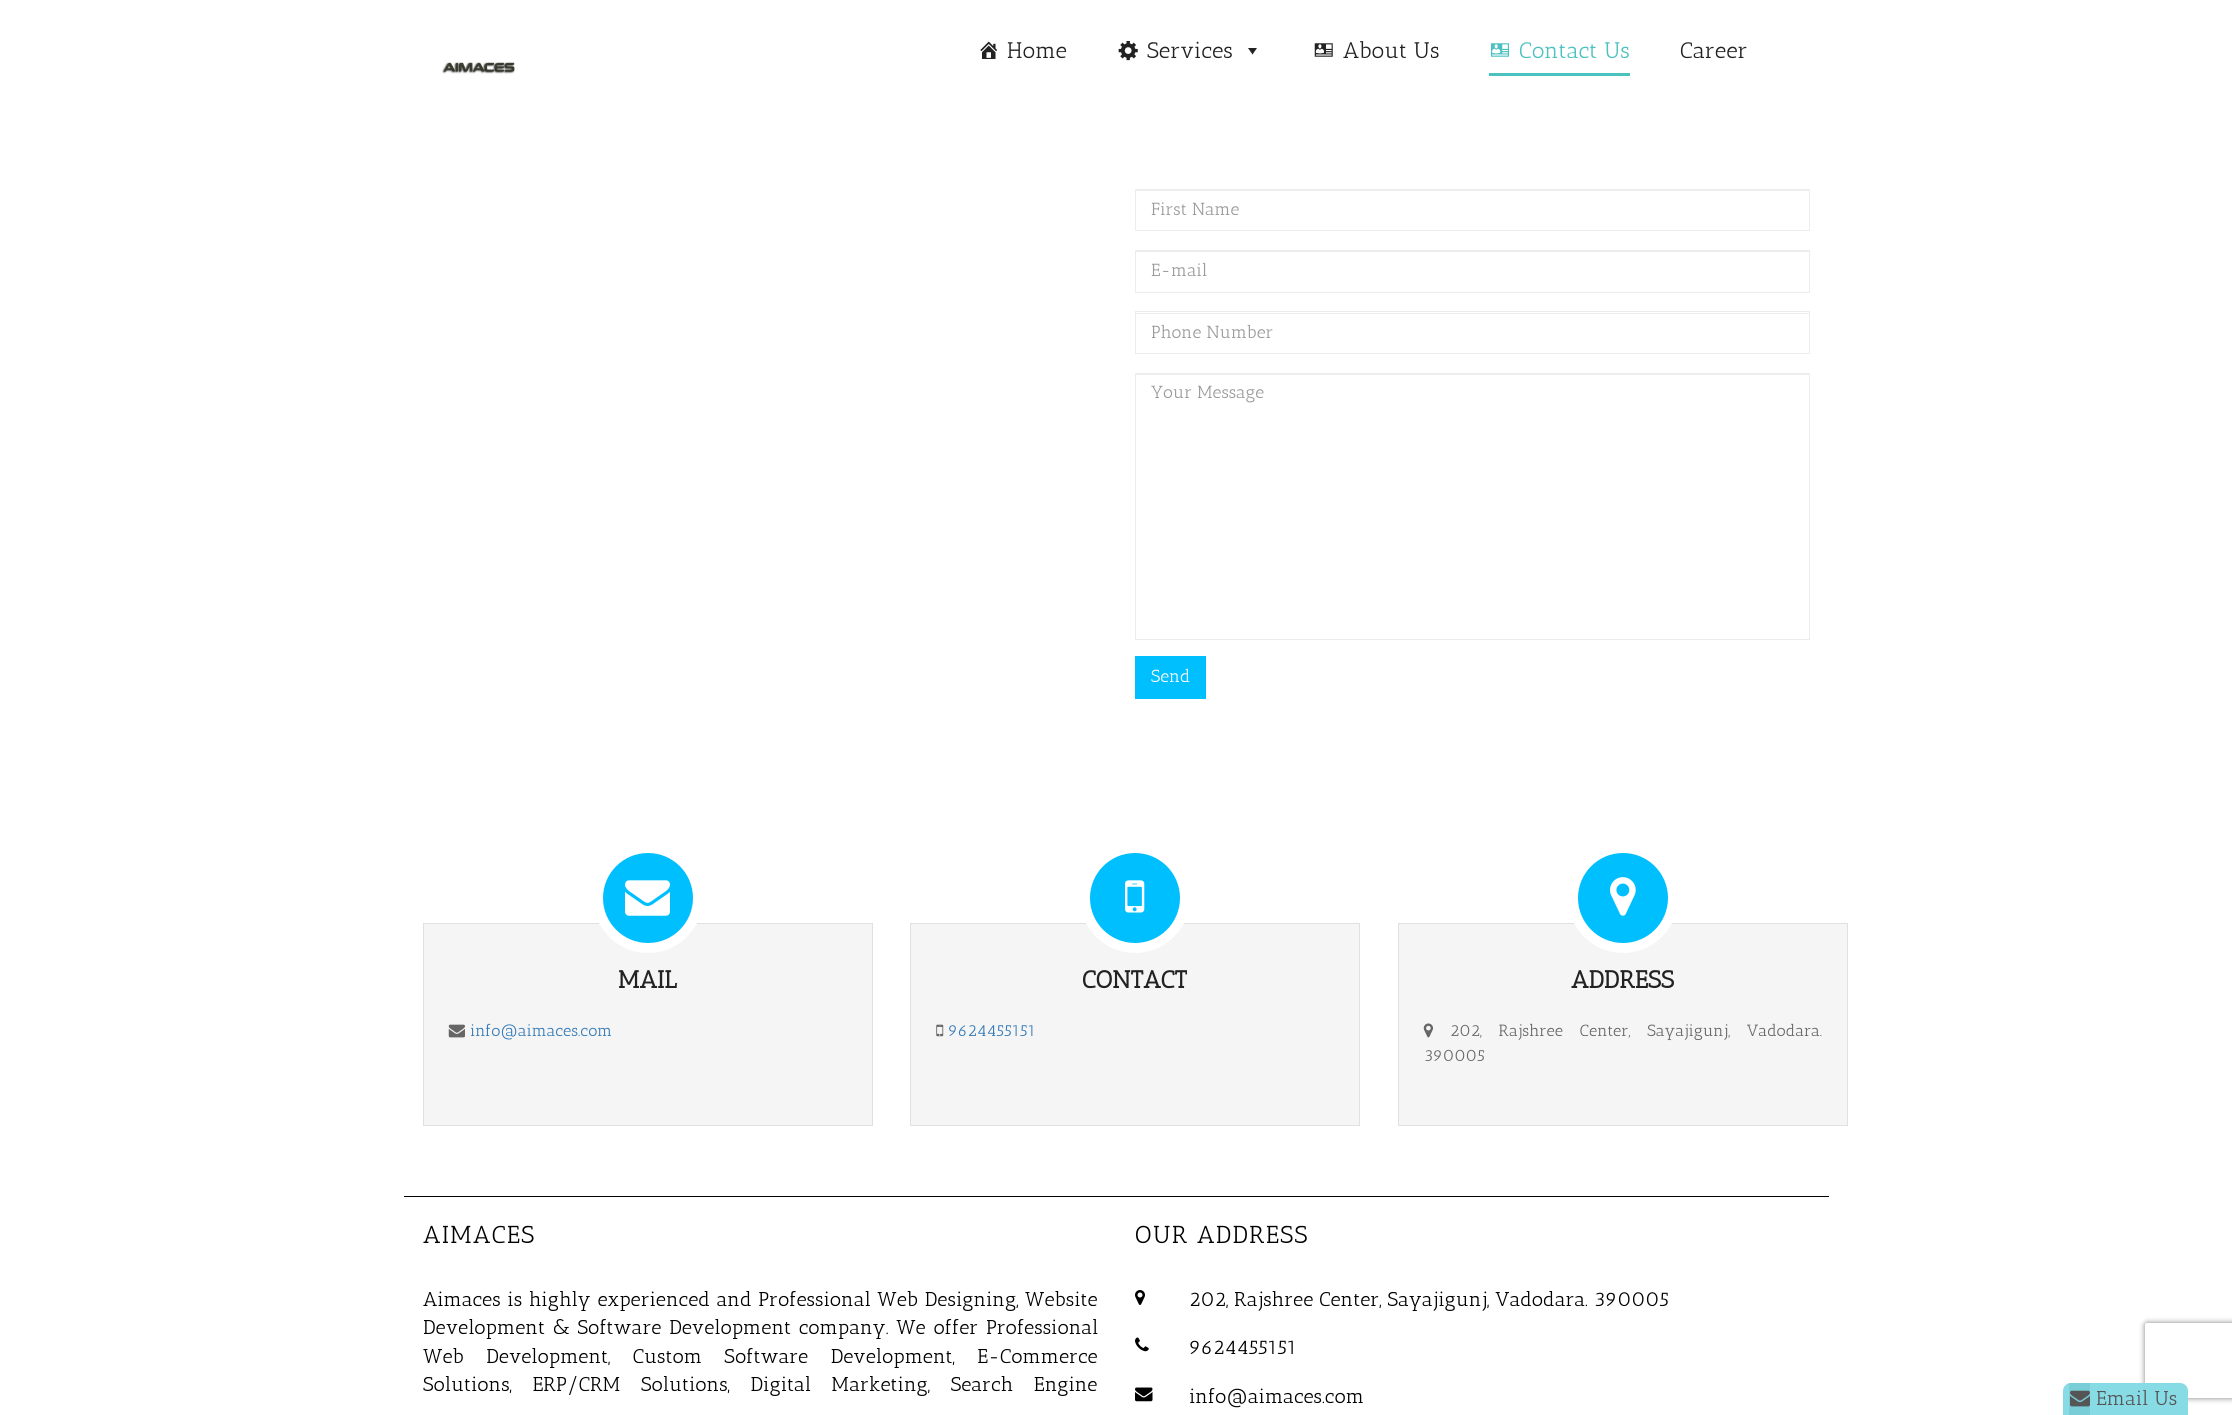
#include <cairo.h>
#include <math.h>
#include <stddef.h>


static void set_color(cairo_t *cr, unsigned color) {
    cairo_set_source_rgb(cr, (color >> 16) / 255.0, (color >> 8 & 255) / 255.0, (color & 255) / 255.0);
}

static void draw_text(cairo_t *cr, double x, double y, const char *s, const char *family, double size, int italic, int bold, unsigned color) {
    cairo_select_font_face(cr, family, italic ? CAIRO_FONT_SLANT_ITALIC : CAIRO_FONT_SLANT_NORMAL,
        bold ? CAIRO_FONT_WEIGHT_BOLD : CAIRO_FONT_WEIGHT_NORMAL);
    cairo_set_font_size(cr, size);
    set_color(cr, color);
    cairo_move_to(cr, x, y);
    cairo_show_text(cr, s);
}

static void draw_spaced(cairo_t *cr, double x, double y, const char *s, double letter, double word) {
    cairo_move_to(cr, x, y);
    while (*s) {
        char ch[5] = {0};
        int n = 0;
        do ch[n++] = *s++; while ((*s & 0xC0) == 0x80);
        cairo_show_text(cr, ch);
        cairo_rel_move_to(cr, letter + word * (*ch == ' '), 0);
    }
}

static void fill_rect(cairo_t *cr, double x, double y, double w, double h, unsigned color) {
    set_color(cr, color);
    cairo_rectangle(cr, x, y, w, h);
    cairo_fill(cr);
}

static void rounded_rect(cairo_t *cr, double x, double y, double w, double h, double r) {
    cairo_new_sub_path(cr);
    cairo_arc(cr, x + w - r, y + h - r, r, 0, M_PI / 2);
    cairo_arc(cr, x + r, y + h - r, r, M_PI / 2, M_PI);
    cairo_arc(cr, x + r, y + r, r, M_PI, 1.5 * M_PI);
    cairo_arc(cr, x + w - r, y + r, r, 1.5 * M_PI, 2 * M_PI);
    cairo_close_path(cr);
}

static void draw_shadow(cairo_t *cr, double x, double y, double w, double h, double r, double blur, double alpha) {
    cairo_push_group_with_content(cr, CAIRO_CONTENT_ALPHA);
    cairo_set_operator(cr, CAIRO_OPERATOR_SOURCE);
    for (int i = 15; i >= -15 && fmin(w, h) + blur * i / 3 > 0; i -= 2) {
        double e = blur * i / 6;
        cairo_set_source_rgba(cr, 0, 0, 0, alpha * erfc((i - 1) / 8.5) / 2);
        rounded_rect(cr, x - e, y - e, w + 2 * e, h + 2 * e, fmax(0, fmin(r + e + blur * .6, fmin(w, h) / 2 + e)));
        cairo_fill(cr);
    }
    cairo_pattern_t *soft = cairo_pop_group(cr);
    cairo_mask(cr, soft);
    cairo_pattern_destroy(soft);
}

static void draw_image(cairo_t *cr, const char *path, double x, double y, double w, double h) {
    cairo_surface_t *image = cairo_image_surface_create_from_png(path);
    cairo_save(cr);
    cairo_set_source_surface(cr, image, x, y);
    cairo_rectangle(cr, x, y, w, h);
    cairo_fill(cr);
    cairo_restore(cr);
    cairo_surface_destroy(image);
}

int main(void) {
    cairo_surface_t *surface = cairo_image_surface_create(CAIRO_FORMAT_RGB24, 2232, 1415);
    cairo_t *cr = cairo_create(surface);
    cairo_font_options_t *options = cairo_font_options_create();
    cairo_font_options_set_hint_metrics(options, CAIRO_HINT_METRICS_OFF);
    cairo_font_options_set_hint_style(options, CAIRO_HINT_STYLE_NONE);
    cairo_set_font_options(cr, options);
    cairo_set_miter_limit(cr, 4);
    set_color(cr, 0xFFFFFF);
    cairo_paint(cr);
    draw_image(cr, "assets/img1.png", 980, 41, 18, 18);
    draw_text(cr, 1007, 58, "Home", "Antic Slab", 22.5, 0, 0, 0x222222);
    draw_image(cr, "assets/img2.png", 1118, 41, 20, 20);
    draw_text(cr, 1147, 58, "Services", "Antic Slab", 22.5, 0, 0, 0x222222);
    cairo_new_path(cr);
    cairo_move_to(cr, 1257, 48);
    cairo_line_to(cr, 1252.5, 54.5);
    cairo_line_to(cr, 1248, 48);
    cairo_close_path(cr);
    cairo_fill(cr);
    draw_image(cr, "assets/img3.png", 1314, 43, 19, 14);
    draw_text(cr, 1343, 58, "About Us", "Antic Slab", 22.5, 0, 0, 0x222222);
    fill_rect(cr, 1489, 73, 141, 3, 0x4CC2C0);
    draw_image(cr, "assets/img4.png", 1491, 43, 18, 14);
    draw_text(cr, 1519, 58, "Contact Us", "Antic Slab", 22.5, 0, 0, 0x4CC2C0);
    draw_text(cr, 1680, 58, "Career", "Antic Slab", 22.5, 0, 0, 0x222222);
    draw_image(cr, "assets/img5.png", 442, 62, 73, 12);
    fill_rect(cr, 1136, 190, 673, 1, 0xECECEC);
    cairo_rectangle(cr, 1135.5, 189.5, 674, 41);
    set_color(cr, 0xEDEDED);
    cairo_set_line_width(cr, 1);
    cairo_stroke(cr);
    draw_text(cr, 1151, 215, "First Name", "Antic Slab", 17.5, 0, 0, 0x999999);
    fill_rect(cr, 1136, 251, 673, 1, 0xECECEC);
    cairo_rectangle(cr, 1135.5, 250.5, 674, 42);
    set_color(cr, 0xEDEDED);
    cairo_stroke(cr);
    draw_text(cr, 1151, 276, "E-mail", "Antic Slab", 17.5, 0, 0, 0x999999);
    fill_rect(cr, 1136, 313, 673, 1, 0xECECEC);
    cairo_rectangle(cr, 1135.5, 311.5, 674, 42);
    set_color(cr, 0xEDEDED);
    cairo_stroke(cr);
    draw_text(cr, 1151, 338, "Phone Number", "Antic Slab", 17.5, 0, 0, 0x999999);
    fill_rect(cr, 1136, 374, 673, 1, 0xECECEC);
    cairo_rectangle(cr, 1135.5, 373.5, 674, 266);
    set_color(cr, 0xEDEDED);
    cairo_stroke(cr);
    draw_text(cr, 1151, 398, "Your Message", "Antic Slab", 17.5, 0, 0, 0x999999);
    fill_rect(cr, 1135, 656, 71, 43, 0x00BFFF);
    draw_text(cr, 1151, 682, "Send", "Antic Slab", 17.5, 0, 0, 0xFFFFFF);
    set_color(cr, 0xF5F5F5);
    cairo_rectangle(cr, 423.5, 923.5, 449, 202);
    cairo_fill_preserve(cr);
    set_color(cr, 0xE0E0E0);
    cairo_stroke(cr);
    set_color(cr, 0x00BFFF);
    cairo_arc(cr, 648, 898, 50, 0, 2 * M_PI);
    cairo_fill_preserve(cr);
    set_color(cr, 0xFFFFFF);
    cairo_set_line_width(cr, 10);
    cairo_stroke(cr);
    draw_image(cr, "assets/img6.png", 625, 880, 45, 36);
    draw_text(cr, 618, 988, "MAIL", "Antic Slab", 24.5, 0, 1, 0x222222);
    draw_image(cr, "assets/img7.png", 448, 1024, 17, 14);
    draw_text(cr, 470, 1036, "info@aimaces.com", "Antic Slab", 16.25, 0, 0, 0x337AB7);
    set_color(cr, 0xF5F5F5);
    cairo_rectangle(cr, 910.5, 923.5, 449, 202);
    cairo_fill_preserve(cr);
    set_color(cr, 0xE0E0E0);
    cairo_set_line_width(cr, 1);
    cairo_stroke(cr);
    set_color(cr, 0x00BFFF);
    cairo_arc(cr, 1135, 898, 50, 0, 2 * M_PI);
    cairo_fill_preserve(cr);
    set_color(cr, 0xFFFFFF);
    cairo_set_line_width(cr, 10);
    cairo_stroke(cr);
    draw_image(cr, "assets/img8.png", 1125, 880, 20, 33);
    draw_text(cr, 1082, 988, "CONTACT", "Antic Slab", 24.5, 0, 1, 0x222222);
    draw_image(cr, "assets/img9.png", 936, 1024, 8, 13);
    draw_text(cr, 948, 1036, "9624455151", "Antic Slab", 16.25, 0, 0, 0x337AB7);
    set_color(cr, 0xF5F5F5);
    cairo_rectangle(cr, 1398.5, 923.5, 449, 202);
    cairo_fill_preserve(cr);
    set_color(cr, 0xE0E0E0);
    cairo_set_line_width(cr, 1);
    cairo_stroke(cr);
    set_color(cr, 0x00BFFF);
    cairo_arc(cr, 1623, 898, 50, 0, 2 * M_PI);
    cairo_fill_preserve(cr);
    set_color(cr, 0xFFFFFF);
    cairo_set_line_width(cr, 10);
    cairo_stroke(cr);
    draw_image(cr, "assets/img10.png", 1610, 877, 26, 39);
    draw_text(cr, 1571, 988, "ADDRESS", "Antic Slab", 24.5, 0, 1, 0x222222);
    draw_image(cr, "assets/img11.png", 1423, 1023, 10, 15);
    cairo_select_font_face(cr, "Antic Slab", CAIRO_FONT_SLANT_NORMAL, CAIRO_FONT_WEIGHT_NORMAL);
    cairo_set_font_size(cr, 16.25);
    set_color(cr, 0x666666);
    draw_spaced(cr, 1450, 1036, "202, Rajshree Center, Sayajigunj, Vadodara.", 0, 12);
    draw_text(cr, 1424, 1061, "390005", "Antic Slab", 16.25, 0, 0, 0x666666);
    fill_rect(cr, 404, 1196, 1425, 1, 0x000000);
    cairo_set_font_size(cr, 24.5);
    draw_spaced(cr, 423, 1243, "AIMACES", 1.25, 0);
    cairo_set_font_size(cr, 20);
    draw_spaced(cr, 423, 1306, "Aimaces is highly experienced and Professional Web Designing, Website", 0, 0.75);
    draw_spaced(cr, 423, 1334, "Development & Software Development company. We offer Professional", 0, 1.75);
    draw_spaced(cr, 423, 1363, "Web Development, Custom Software Development, E-Commerce", 0, 16.5);
    draw_spaced(cr, 423, 1391, "Solutions, ERP/CRM Solutions, Digital Marketing, Search Engine", 0, 14.75);
    cairo_set_font_size(cr, 24.5);
    draw_spaced(cr, 1135, 1243, "OUR ADDRESS", 1.25, 0);
    draw_image(cr, "assets/img12.png", 1135, 1290, 10, 15);
    draw_text(cr, 1189, 1306, "202, Rajshree Center, Sayajigunj, Vadodara. 390005", "Antic Slab", 20, 0, 0, 0x000000);
    draw_image(cr, "assets/img13.png", 1135, 1337, 14, 15);
    draw_text(cr, 1189, 1354, "9624455151", "Antic Slab", 20, 0, 0, 0x000000);
    draw_image(cr, "assets/img14.png", 1135, 1387, 18, 15);
    draw_text(cr, 1189, 1403, "info@aimaces.com", "Antic Slab", 20, 0, 0, 0x000000);
    cairo_save(cr);
    cairo_set_fill_rule(cr, CAIRO_FILL_RULE_EVEN_ODD);
    cairo_new_path(cr);
    cairo_move_to(cr, 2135, 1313);
    cairo_line_to(cr, 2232, 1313);
    cairo_line_to(cr, 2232, 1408);
    cairo_line_to(cr, 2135, 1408);
    cairo_close_path(cr);
    cairo_move_to(cr, 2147.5, 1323);
    cairo_line_to(cr, 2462.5, 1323);
    cairo_curve_to(cr, 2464, 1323, 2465, 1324, 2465, 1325.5);
    cairo_line_to(cr, 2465, 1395.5);
    cairo_curve_to(cr, 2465, 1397, 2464, 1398, 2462.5, 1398);
    cairo_line_to(cr, 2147.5, 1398);
    cairo_curve_to(cr, 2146, 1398, 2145, 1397, 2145, 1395.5);
    cairo_line_to(cr, 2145, 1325.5);
    cairo_curve_to(cr, 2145, 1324, 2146, 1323, 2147.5, 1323);
    cairo_close_path(cr);
    cairo_clip(cr);
    set_color(cr, 0x808080);
    draw_shadow(cr, 2145, 1323, 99, 75, 2.5, 3, 1);
    cairo_restore(cr);
    set_color(cr, 0x87DBE5);
    cairo_new_path(cr);
    cairo_move_to(cr, 2071, 1383);
    cairo_line_to(cr, 2180, 1383);
    cairo_curve_to(cr, 2184.5, 1383, 2188, 1386.5, 2188, 1391);
    cairo_line_to(cr, 2188, 1415);
    cairo_line_to(cr, 2063, 1415);
    cairo_line_to(cr, 2063, 1391);
    cairo_curve_to(cr, 2063, 1386.5, 2066.5, 1383, 2071, 1383);
    cairo_close_path(cr);
    cairo_fill(cr);
    fill_rect(cr, 2069, 1383, 21, 32, 0x79CDD7);
    draw_image(cr, "assets/img15.png", 2070, 1390, 20, 17);
    draw_text(cr, 2096, 1405, "Email Us", "Antic Slab", 20, 0, 0, 0x565555);
    cairo_surface_write_to_png(surface, "output.png");
    cairo_font_options_destroy(options);
    cairo_destroy(cr);
    cairo_surface_destroy(surface);
    return 0;
}
